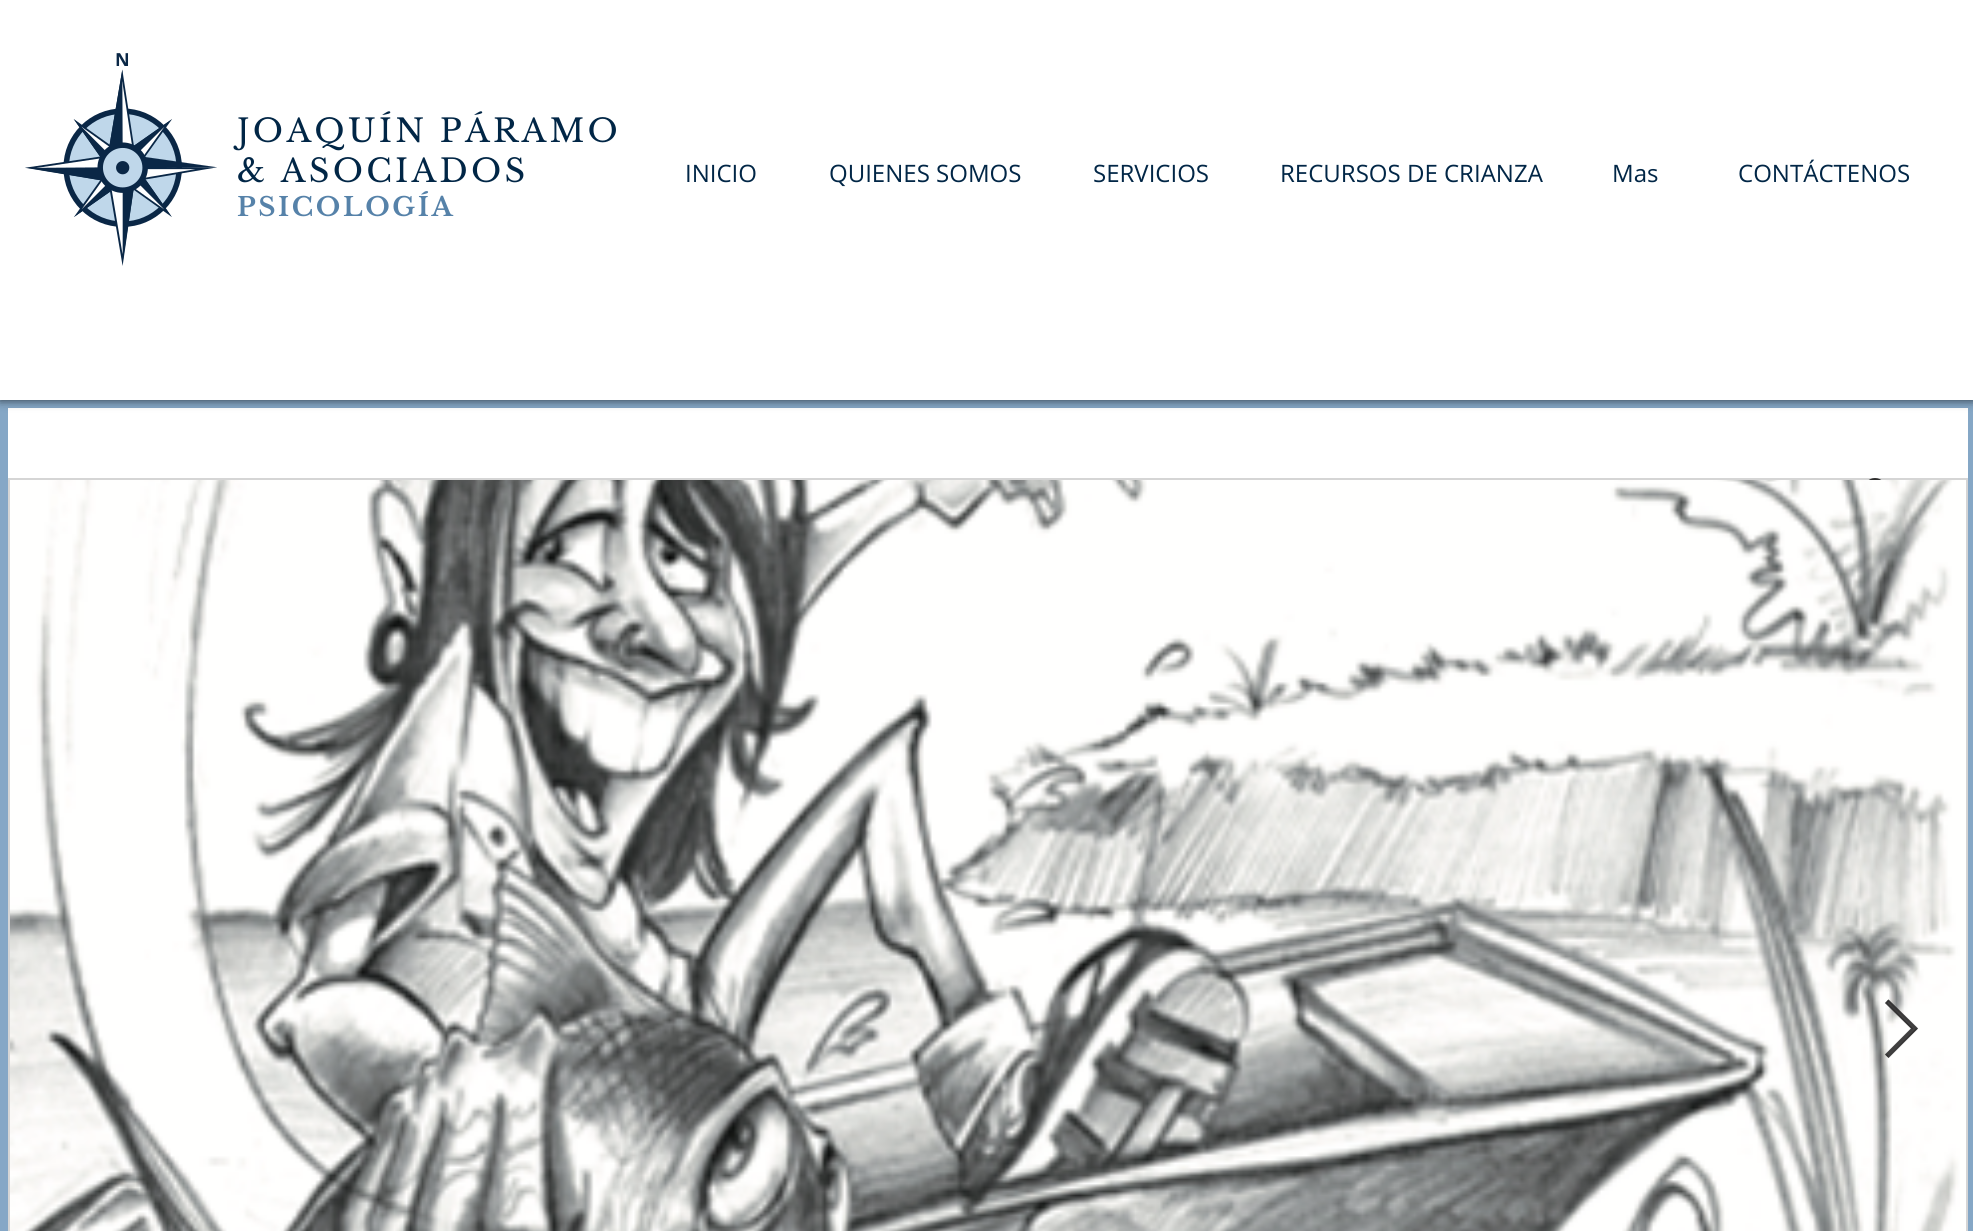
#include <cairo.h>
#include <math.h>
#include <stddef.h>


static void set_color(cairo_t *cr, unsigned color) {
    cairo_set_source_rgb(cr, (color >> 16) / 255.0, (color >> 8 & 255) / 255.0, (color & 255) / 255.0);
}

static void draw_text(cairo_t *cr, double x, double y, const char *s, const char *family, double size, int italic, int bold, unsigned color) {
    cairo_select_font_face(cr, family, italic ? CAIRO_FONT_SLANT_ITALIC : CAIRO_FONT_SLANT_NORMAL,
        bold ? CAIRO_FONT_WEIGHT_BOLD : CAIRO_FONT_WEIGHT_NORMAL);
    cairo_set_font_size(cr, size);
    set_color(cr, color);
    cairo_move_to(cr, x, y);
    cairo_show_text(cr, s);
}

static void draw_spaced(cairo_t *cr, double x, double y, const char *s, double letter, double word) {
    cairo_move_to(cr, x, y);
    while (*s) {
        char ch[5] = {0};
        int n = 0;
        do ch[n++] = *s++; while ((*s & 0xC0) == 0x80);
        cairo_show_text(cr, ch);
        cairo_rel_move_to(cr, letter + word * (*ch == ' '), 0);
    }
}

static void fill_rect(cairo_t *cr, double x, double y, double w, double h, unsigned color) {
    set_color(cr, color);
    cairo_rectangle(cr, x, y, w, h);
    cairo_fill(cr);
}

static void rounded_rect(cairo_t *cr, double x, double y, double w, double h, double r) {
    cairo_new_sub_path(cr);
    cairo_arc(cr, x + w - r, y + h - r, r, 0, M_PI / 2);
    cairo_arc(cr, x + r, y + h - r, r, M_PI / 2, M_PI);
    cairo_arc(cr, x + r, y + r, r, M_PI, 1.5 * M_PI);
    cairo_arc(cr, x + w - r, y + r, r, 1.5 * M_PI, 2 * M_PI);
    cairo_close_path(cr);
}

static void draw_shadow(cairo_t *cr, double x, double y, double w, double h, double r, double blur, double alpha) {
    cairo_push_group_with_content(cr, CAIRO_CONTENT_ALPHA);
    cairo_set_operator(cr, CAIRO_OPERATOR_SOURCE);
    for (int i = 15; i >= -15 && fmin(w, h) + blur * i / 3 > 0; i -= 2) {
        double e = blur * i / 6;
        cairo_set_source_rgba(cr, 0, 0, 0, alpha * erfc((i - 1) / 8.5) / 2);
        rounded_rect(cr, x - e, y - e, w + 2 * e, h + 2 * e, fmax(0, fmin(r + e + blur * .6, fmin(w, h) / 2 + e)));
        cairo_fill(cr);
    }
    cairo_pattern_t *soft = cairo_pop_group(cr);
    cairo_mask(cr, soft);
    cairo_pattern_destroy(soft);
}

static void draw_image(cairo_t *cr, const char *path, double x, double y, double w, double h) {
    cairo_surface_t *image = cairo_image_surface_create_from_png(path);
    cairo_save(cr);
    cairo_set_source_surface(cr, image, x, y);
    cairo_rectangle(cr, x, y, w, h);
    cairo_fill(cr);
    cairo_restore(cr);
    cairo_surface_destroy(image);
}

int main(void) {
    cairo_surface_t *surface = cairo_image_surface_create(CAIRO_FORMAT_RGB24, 1973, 1231);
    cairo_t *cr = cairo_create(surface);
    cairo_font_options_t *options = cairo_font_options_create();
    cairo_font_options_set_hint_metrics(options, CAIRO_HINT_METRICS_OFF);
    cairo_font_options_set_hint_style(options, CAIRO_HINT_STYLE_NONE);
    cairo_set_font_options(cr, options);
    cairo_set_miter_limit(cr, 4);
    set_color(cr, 0x85A7C6);
    cairo_paint(cr);
    fill_rect(cr, 8, 408, 1960, 823, 0xFFFFFF);
    set_color(cr, 0x000000);
    draw_shadow(cr, 0, 0, 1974, 400, 0, 5, 0.7);
    fill_rect(cr, 0, 0, 1973, 400, 0xFFFFFF);
    draw_image(cr, "assets/img1.png", 25, 69, 192, 197);
    draw_text(cr, 115, 66, "N", "Open Sans", 18, 0, 1, 0x0A2746);
    cairo_select_font_face(cr, "Libre Baskerville", CAIRO_FONT_SLANT_NORMAL, CAIRO_FONT_WEIGHT_NORMAL);
    cairo_set_font_size(cr, 32);
    set_color(cr, 0x012646);
    draw_spaced(cr, 237, 142, "JOAQUÍN PÁRAMO", 3.25, 0);
    draw_spaced(cr, 237, 182, "& ASOCIADOS", 3.25, 0);
    cairo_select_font_face(cr, "Libre Baskerville", CAIRO_FONT_SLANT_NORMAL, CAIRO_FONT_WEIGHT_BOLD);
    cairo_set_font_size(cr, 26);
    set_color(cr, 0x5682A9);
    draw_spaced(cr, 237, 216, "PSICOLOGÍA", 2.6, 0);
    draw_text(cr, 685, 182, "INICIO", "Open Sans", 24, 0, 0, 0x012646);
    draw_text(cr, 829, 182, "QUIENES SOMOS", "Open Sans", 24, 0, 0, 0x012646);
    draw_text(cr, 1093, 182, "SERVICIOS", "Open Sans", 24, 0, 0, 0x012646);
    draw_text(cr, 1280, 182, "RECURSOS DE CRIANZA", "Open Sans", 24, 0, 0, 0x012646);
    draw_text(cr, 1612, 182, "Mas", "Open Sans", 24, 0, 0, 0x012646);
    draw_text(cr, 1738, 182, "CONTÁCTENOS", "Open Sans", 24, 0, 0, 0x012646);
    draw_image(cr, "assets/img2.png", 1868, 478, 14, 2);
    cairo_rectangle(cr, 9, 479, 1958, 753);
    cairo_set_source_rgba(cr, 0.184, 0.18, 0.18, 0.2);
    cairo_stroke(cr);
    draw_image(cr, "assets/img3.png", 10, 480, 1956, 751);
    cairo_set_source_rgba(cr, 0.184, 0.18, 0.18, 0.9);
    cairo_new_path(cr);
    cairo_move_to(cr, 1886, 1003);
    cairo_line_to(cr, 1888, 1000);
    cairo_line_to(cr, 1917, 1029);
    cairo_line_to(cr, 1888, 1057);
    cairo_line_to(cr, 1886, 1055);
    cairo_line_to(cr, 1912, 1029);
    cairo_close_path(cr);
    cairo_fill(cr);
    cairo_new_path(cr);
    cairo_move_to(cr, 1886, 1003);
    cairo_line_to(cr, 1888.5, 1000.5);
    cairo_line_to(cr, 1917, 1028.5);
    cairo_line_to(cr, 1888.5, 1057);
    cairo_line_to(cr, 1886, 1054.5);
    cairo_line_to(cr, 1912, 1028.5);
    cairo_close_path(cr);
    cairo_set_line_width(cr, 1.6);
    cairo_stroke(cr);
    cairo_surface_write_to_png(surface, "output.png");
    cairo_font_options_destroy(options);
    cairo_destroy(cr);
    cairo_surface_destroy(surface);
    return 0;
}
